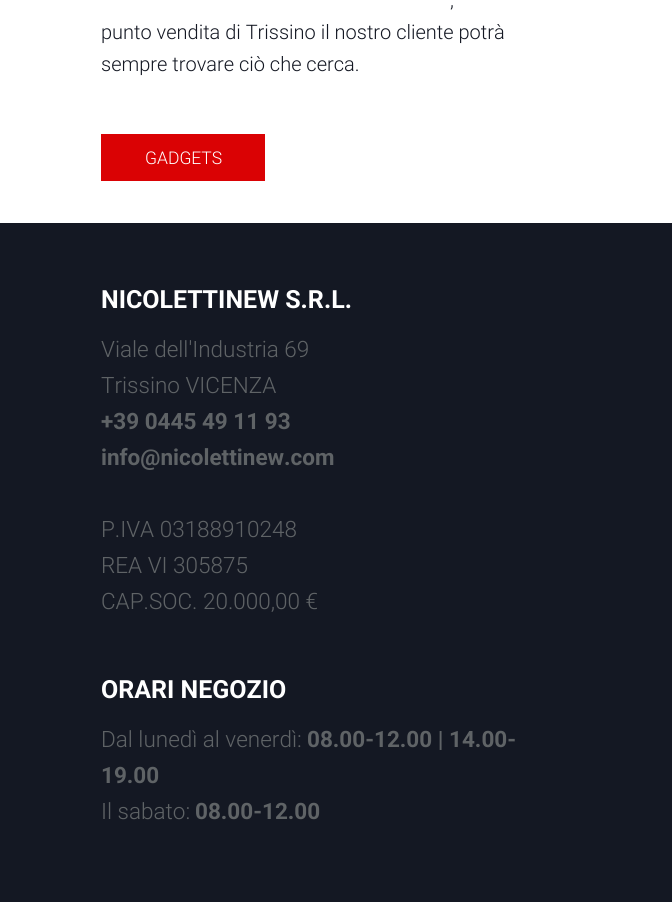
#include <cairo.h>
#include <math.h>
#include <stddef.h>


static void set_color(cairo_t *cr, unsigned color) {
    cairo_set_source_rgb(cr, (color >> 16) / 255.0, (color >> 8 & 255) / 255.0, (color & 255) / 255.0);
}

static void draw_text(cairo_t *cr, double x, double y, const char *s, const char *family, double size, int italic, int bold, unsigned color) {
    cairo_select_font_face(cr, family, italic ? CAIRO_FONT_SLANT_ITALIC : CAIRO_FONT_SLANT_NORMAL,
        bold ? CAIRO_FONT_WEIGHT_BOLD : CAIRO_FONT_WEIGHT_NORMAL);
    cairo_set_font_size(cr, size);
    set_color(cr, color);
    cairo_move_to(cr, x, y);
    cairo_show_text(cr, s);
}

static void fill_rect(cairo_t *cr, double x, double y, double w, double h, unsigned color) {
    set_color(cr, color);
    cairo_rectangle(cr, x, y, w, h);
    cairo_fill(cr);
}

int main(void) {
    cairo_surface_t *surface = cairo_image_surface_create(CAIRO_FORMAT_RGB24, 672, 902);
    cairo_t *cr = cairo_create(surface);
    cairo_font_options_t *options = cairo_font_options_create();
    cairo_font_options_set_hint_metrics(options, CAIRO_HINT_METRICS_OFF);
    cairo_font_options_set_hint_style(options, CAIRO_HINT_STYLE_NONE);
    cairo_set_font_options(cr, options);
    cairo_set_miter_limit(cr, 4);
    set_color(cr, 0xFFFFFF);
    cairo_paint(cr);
    draw_text(cr, 450, 7, ",", "Roboto Light", 20, 0, 0, 0x141823);
    draw_text(cr, 101, 39, "punto vendita di Trissino il nostro cliente potrà", "Roboto Light", 20, 0, 0, 0x141823);
    draw_text(cr, 101, 71, "sempre trovare ciò che cerca.", "Roboto Light", 20, 0, 0, 0x141823);
    fill_rect(cr, 101, 134, 164, 47, 0xDA0204);
    draw_text(cr, 145, 164, "GADGETS", "Roboto Light", 17.5, 0, 0, 0xFFFFFF);
    fill_rect(cr, 0, 223, 672, 679, 0x141823);
    draw_text(cr, 101, 308, "NICOLETTINEW S.R.L.", "Roboto", 25, 0, 1, 0xFFFFFF);
    draw_text(cr, 101, 357, "Viale dell'Industria 69", "Roboto Light", 22.5, 0, 0, 0x5F6366);
    draw_text(cr, 101, 393, "Trissino VICENZA", "Roboto Light", 22.5, 0, 0, 0x5F6366);
    draw_text(cr, 101, 429, "+39 0445 49 11 93", "Roboto", 22.5, 0, 1, 0x5F6366);
    draw_text(cr, 101, 465, "info@nicolettinew.com", "Roboto", 22.5, 0, 1, 0x5F6366);
    draw_text(cr, 101, 537, "P.IVA 03188910248", "Roboto Light", 22.5, 0, 0, 0x5F6366);
    draw_text(cr, 101, 573, "REA VI 305875", "Roboto Light", 22.5, 0, 0, 0x5F6366);
    draw_text(cr, 101, 609, "CAP.SOC. 20.000,00 €", "Roboto Light", 22.5, 0, 0, 0x5F6366);
    draw_text(cr, 101, 698, "ORARI NEGOZIO", "Roboto", 25, 0, 1, 0xFFFFFF);
    draw_text(cr, 101, 747, "Dal lunedì al venerdì:", "Roboto Light", 22.5, 0, 0, 0x5F6366);
    draw_text(cr, 307, 747, "08.00-12.00 | 14.00-", "Roboto", 22.5, 0, 1, 0x5F6366);
    draw_text(cr, 101, 783, "19.00", "Roboto", 22.5, 0, 1, 0x5F6366);
    draw_text(cr, 101, 819, "Il sabato:", "Roboto Light", 22.5, 0, 0, 0x5F6366);
    draw_text(cr, 195, 819, "08.00-12.00", "Roboto", 22.5, 0, 1, 0x5F6366);
    cairo_surface_write_to_png(surface, "output.png");
    cairo_font_options_destroy(options);
    cairo_destroy(cr);
    cairo_surface_destroy(surface);
    return 0;
}
